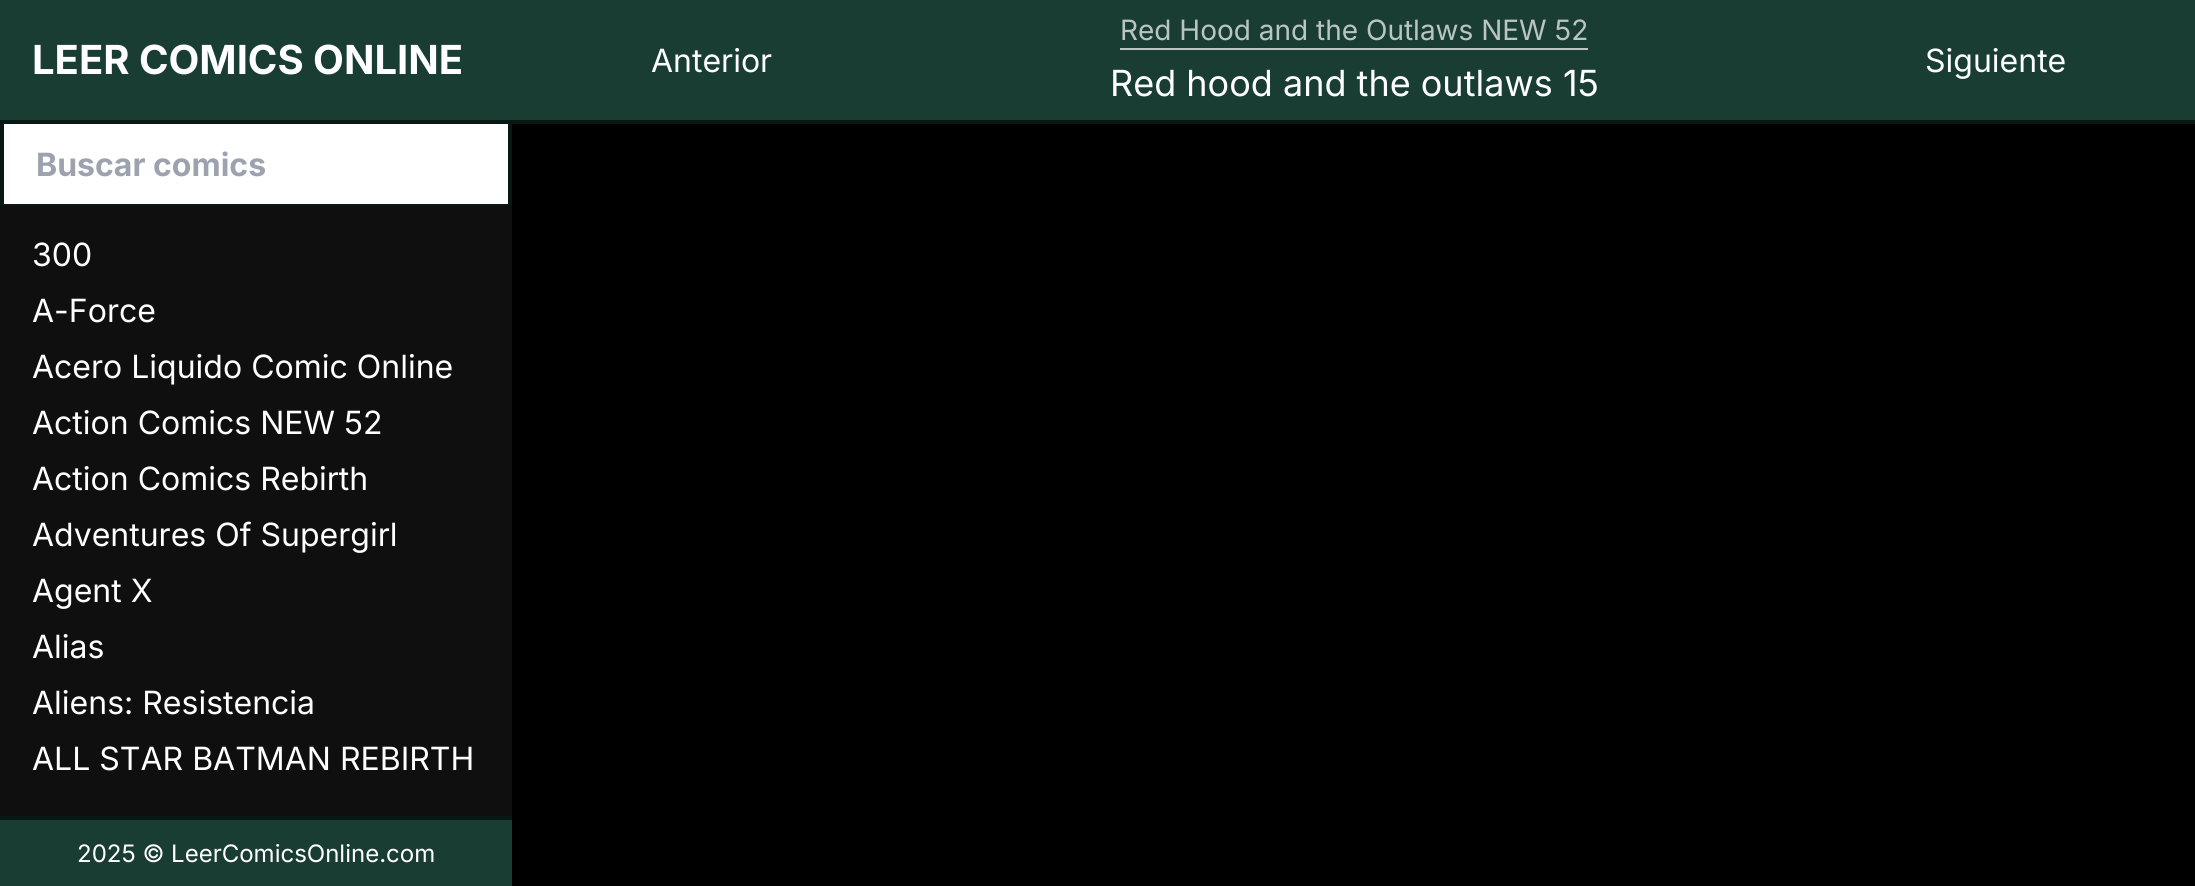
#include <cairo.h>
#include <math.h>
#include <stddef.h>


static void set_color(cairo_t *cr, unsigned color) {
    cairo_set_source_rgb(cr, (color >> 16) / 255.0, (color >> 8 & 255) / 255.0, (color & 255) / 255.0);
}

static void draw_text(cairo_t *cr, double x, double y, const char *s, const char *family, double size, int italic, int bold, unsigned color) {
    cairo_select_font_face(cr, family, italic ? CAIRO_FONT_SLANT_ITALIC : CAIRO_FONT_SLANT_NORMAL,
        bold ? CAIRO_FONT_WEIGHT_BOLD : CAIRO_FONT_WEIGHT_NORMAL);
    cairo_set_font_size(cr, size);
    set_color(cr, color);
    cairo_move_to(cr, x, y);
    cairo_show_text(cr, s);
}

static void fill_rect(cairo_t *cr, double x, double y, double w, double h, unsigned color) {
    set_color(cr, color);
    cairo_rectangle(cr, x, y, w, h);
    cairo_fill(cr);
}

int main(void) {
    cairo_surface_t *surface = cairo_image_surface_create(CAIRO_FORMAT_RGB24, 2195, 886);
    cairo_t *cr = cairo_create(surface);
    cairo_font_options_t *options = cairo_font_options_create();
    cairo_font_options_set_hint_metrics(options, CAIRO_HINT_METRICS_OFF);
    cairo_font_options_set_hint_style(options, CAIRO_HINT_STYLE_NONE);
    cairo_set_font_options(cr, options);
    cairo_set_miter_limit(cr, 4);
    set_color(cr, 0x000000);
    cairo_paint(cr);
    fill_rect(cr, 0, 0, 512, 886, 0x193D33);
    draw_text(cr, 32, 74, "LEER COMICS ONLINE", "Inter", 40, 0, 1, 0xFFFFFF);
    cairo_rectangle(cr, 2, 122, 508, 84);
    cairo_fill_preserve(cr);
    set_color(cr, 0x0A1814);
    cairo_set_line_width(cr, 4);
    cairo_stroke(cr);
    draw_text(cr, 36, 176, "Buscar comics", "Inter", 32, 0, 1, 0x9CA3AF);
    fill_rect(cr, 0, 206, 512, 610, 0x0F0F0F);
    fill_rect(cr, 0, 816, 512, 4, 0x0A1814);
    draw_text(cr, 32, 266, "300", "Inter", 32, 0, 0, 0xFFFFFF);
    draw_text(cr, 32, 322, "A-Force", "Inter", 32, 0, 0, 0xFFFFFF);
    draw_text(cr, 32, 378, "Acero Liquido Comic Online", "Inter", 32, 0, 0, 0xFFFFFF);
    draw_text(cr, 32, 434, "Action Comics NEW 52", "Inter", 32, 0, 0, 0xFFFFFF);
    draw_text(cr, 32, 490, "Action Comics Rebirth", "Inter", 32, 0, 0, 0xFFFFFF);
    draw_text(cr, 32, 546, "Adventures Of Supergirl", "Inter", 32, 0, 0, 0xFFFFFF);
    draw_text(cr, 32, 602, "Agent X", "Inter", 32, 0, 0, 0xFFFFFF);
    draw_text(cr, 32, 658, "Alias", "Inter", 32, 0, 0, 0xFFFFFF);
    draw_text(cr, 32, 714, "Aliens: Resistencia", "Inter", 32, 0, 0, 0xFFFFFF);
    draw_text(cr, 32, 770, "ALL STAR BATMAN REBIRTH", "Inter", 32, 0, 0, 0xFFFFFF);
    draw_text(cr, 77, 862, "2025 © LeerComicsOnline.com", "Inter", 24, 0, 0, 0xFFFFFF);
    fill_rect(cr, 512, 0, 1683, 120, 0x193D33);
    fill_rect(cr, 512, 120, 1683, 4, 0x0A1814);
    draw_text(cr, 651, 72, "Anterior", "Inter", 32, 0, 0, 0xFFFFFF);
    draw_text(cr, 1120, 40, "Red Hood and the Outlaws NEW 52", "Inter", 28, 0, 0, 0xBAC5C2);
    fill_rect(cr, 1120, 48, 468, 2, 0xBAC5C2);
    draw_text(cr, 1110, 96, "Red hood and the outlaws 15", "Inter", 36, 0, 0, 0xFFFFFF);
    draw_text(cr, 1925, 72, "Siguiente", "Inter", 32, 0, 0, 0xFFFFFF);
    cairo_surface_write_to_png(surface, "output.png");
    cairo_font_options_destroy(options);
    cairo_destroy(cr);
    cairo_surface_destroy(surface);
    return 0;
}
